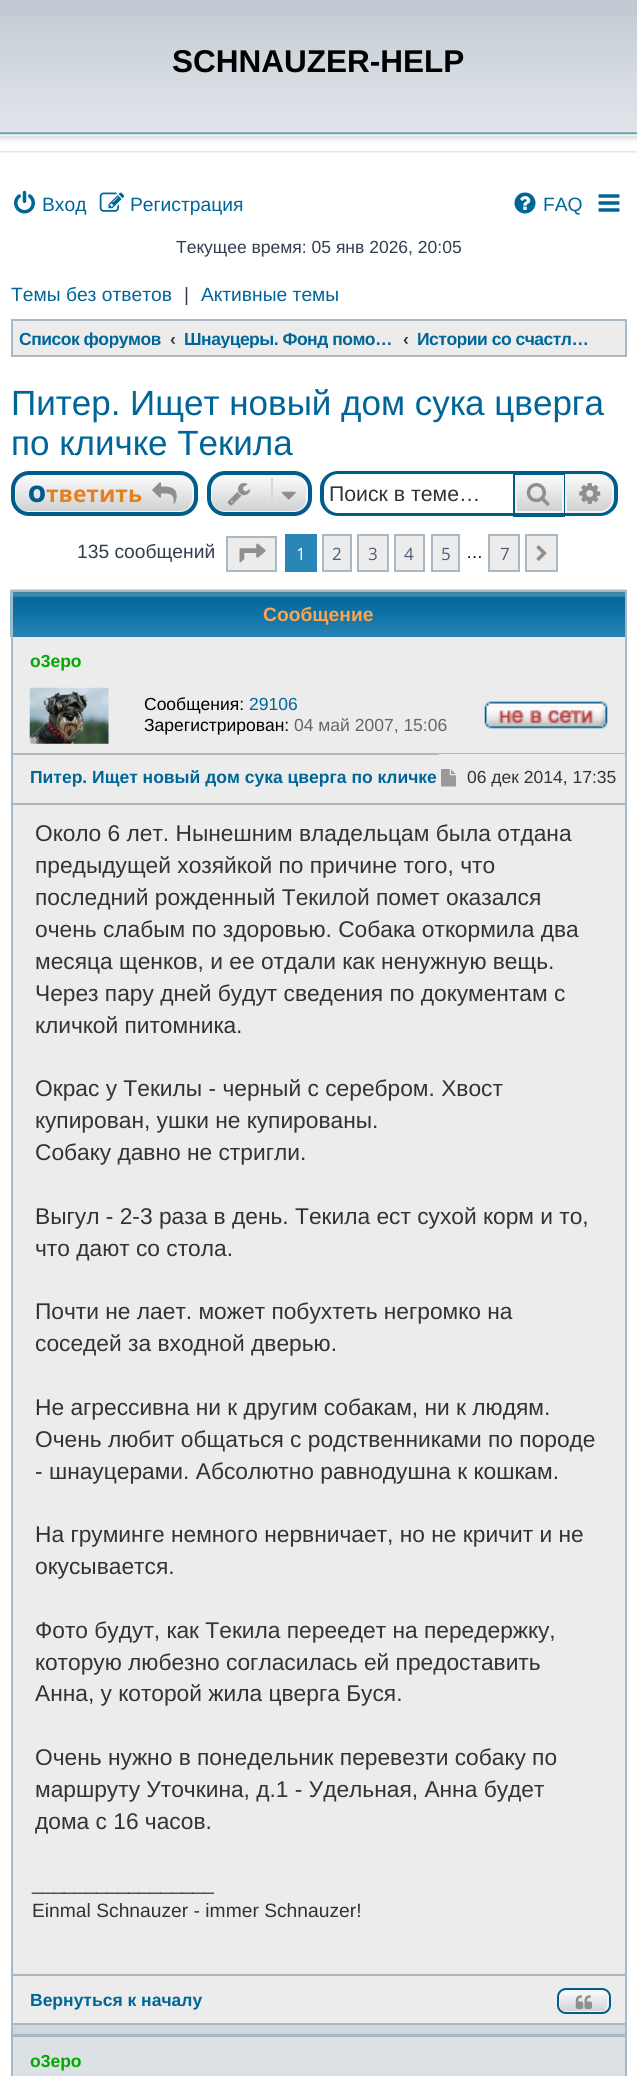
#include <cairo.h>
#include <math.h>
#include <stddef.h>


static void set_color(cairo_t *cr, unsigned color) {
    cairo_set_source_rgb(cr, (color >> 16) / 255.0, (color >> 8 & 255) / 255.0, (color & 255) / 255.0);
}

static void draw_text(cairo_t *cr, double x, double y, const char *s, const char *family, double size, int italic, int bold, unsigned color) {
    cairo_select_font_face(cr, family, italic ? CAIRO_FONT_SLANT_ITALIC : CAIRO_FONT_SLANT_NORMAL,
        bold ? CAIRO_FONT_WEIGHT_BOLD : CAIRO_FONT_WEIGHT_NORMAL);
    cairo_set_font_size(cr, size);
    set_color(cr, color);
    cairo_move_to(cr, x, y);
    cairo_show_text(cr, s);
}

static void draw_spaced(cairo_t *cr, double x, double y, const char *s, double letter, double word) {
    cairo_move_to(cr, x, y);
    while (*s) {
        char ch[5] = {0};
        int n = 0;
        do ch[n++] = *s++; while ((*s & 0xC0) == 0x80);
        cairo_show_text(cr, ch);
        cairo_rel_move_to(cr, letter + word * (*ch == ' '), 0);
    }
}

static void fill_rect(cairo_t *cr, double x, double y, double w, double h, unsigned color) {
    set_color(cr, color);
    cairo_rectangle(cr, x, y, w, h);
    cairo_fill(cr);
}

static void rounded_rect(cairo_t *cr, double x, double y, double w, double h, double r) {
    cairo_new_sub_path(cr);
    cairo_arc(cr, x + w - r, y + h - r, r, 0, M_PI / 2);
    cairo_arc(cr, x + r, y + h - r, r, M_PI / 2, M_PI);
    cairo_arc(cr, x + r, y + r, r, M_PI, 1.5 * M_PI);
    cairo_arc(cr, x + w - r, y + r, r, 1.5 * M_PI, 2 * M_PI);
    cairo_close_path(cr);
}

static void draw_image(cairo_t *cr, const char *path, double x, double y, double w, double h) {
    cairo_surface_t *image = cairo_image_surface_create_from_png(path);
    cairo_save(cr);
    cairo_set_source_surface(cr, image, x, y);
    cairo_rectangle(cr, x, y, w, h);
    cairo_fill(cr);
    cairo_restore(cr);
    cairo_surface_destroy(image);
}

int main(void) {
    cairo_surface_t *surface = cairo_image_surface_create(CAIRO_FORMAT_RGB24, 637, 2076);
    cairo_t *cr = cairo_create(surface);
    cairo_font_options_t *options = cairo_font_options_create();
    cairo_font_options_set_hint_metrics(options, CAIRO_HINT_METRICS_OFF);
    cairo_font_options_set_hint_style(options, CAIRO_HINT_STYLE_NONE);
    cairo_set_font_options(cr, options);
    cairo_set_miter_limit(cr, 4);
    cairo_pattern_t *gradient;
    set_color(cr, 0xFFFFFF);
    cairo_paint(cr);
    fill_rect(cr, 0, 0, 637, 16, 0xC1CAD2);
    draw_image(cr, "assets/img1.png", 0, 16, 637, 137);
    draw_text(cr, 172, 72, "SCHNAUZER-HELP", "Liberation Sans", 31.5, 0, 1, 0x000000);
    draw_image(cr, "assets/img2.png", 14, 190, 21, 24);
    draw_text(cr, 42, 211, "Вход", "Liberation Sans", 19.25, 0, 0, 0x006597);
    draw_image(cr, "assets/img3.png", 99, 192, 26, 20);
    draw_text(cr, 130, 211, "Регистрация", "Liberation Sans", 19.25, 0, 0, 0x006597);
    draw_image(cr, "assets/img4.png", 514, 192, 22, 22);
    draw_text(cr, 543, 211, "FAQ", "Liberation Sans", 19.25, 0, 0, 0x006597);
    draw_image(cr, "assets/img5.png", 598, 194, 22, 18);
    draw_text(cr, 176, 253, "Текущее время: 05 янв 2026, 20:05", "Liberation Sans", 17.5, 0, 0, 0x323D4F);
    draw_text(cr, 11, 301, "Темы без ответов", "Liberation Sans", 19.25, 0, 0, 0x006597);
    draw_text(cr, 184, 301, "|", "Liberation Sans", 19.25, 0, 0, 0x323D4F);
    draw_text(cr, 201, 301, "Активные темы", "Liberation Sans", 19.25, 0, 0, 0x006597);
    set_color(cr, 0xECECEC);
    cairo_rectangle(cr, 12, 320, 614, 36);
    cairo_fill_preserve(cr);
    set_color(cr, 0xA9B8C2);
    cairo_stroke(cr);
    cairo_save(cr);
    cairo_rectangle(cr, 19, 329, 142, 19);
    cairo_clip(cr);
    cairo_select_font_face(cr, "Liberation Sans", CAIRO_FONT_SLANT_NORMAL, CAIRO_FONT_WEIGHT_BOLD);
    cairo_set_font_size(cr, 17.5);
    set_color(cr, 0x006597);
    draw_spaced(cr, 19, 345, "Список форумов", -0.5, 0);
    cairo_restore(cr);
    draw_text(cr, 170, 345, "‹", "Liberation Sans", 17.5, 0, 1, 0x323D4F);
    cairo_save(cr);
    cairo_rectangle(cr, 184, 329, 210, 19);
    cairo_clip(cr);
    set_color(cr, 0x006597);
    draw_spaced(cr, 184, 345, "Шнауцеры. Фонд помо…", -0.5, 0);
    cairo_restore(cr);
    draw_text(cr, 403, 345, "‹", "Liberation Sans", 17.5, 0, 1, 0x323D4F);
    cairo_save(cr);
    cairo_rectangle(cr, 418, 329, 175, 19);
    cairo_clip(cr);
    set_color(cr, 0x006597);
    draw_spaced(cr, 417, 345, "Истории со счастл…", -0.5, 0);
    cairo_restore(cr);
    draw_text(cr, 11, 415, "Питер. Ищет новый дом сука цверга", "Liberation Sans", 35, 0, 0, 0x006597);
    draw_text(cr, 11, 455, "по кличке Текила", "Liberation Sans", 35, 0, 0, 0x006597);
    cairo_save(cr);
    rounded_rect(cr, 11, 471, 187, 45, 18);
    cairo_clip(cr);
    gradient = cairo_pattern_create_linear(104, 474, 104, 513);
    cairo_pattern_add_color_stop_rgba(gradient, 0, 0.992, 0.992, 0.992, 1);
    cairo_pattern_add_color_stop_rgba(gradient, 1, 0.804, 0.812, 0.82, 1);
    cairo_set_source(cr, gradient);
    cairo_pattern_destroy(gradient);
    cairo_rectangle(cr, 11, 474, 187, 39);
    cairo_fill(cr);
    cairo_restore(cr);
    rounded_rect(cr, 15, 475, 178, 37, 13);
    set_color(cr, 0xF4F4F4);
    cairo_stroke(cr);
    rounded_rect(cr, 13, 473, 183, 41, 16);
    set_color(cr, 0x005C8B);
    cairo_set_line_width(cr, 4);
    cairo_stroke(cr);
    draw_text(cr, 28, 502, "О", "Noto Sans Black", 22.75, 0, 0, 0x005C8B);
    draw_text(cr, 46, 502, "тветить", "Open Sans", 22.75, 0, 1, 0xE5801C);
    draw_image(cr, "assets/img6.png", 152, 482, 25, 22);
    cairo_save(cr);
    rounded_rect(cr, 207, 471, 105, 45, 18);
    cairo_clip(cr);
    gradient = cairo_pattern_create_linear(259, 474, 259, 513);
    cairo_pattern_add_color_stop_rgba(gradient, 0, 0.992, 0.992, 0.992, 1);
    cairo_pattern_add_color_stop_rgba(gradient, 1, 0.804, 0.812, 0.82, 1);
    cairo_set_source(cr, gradient);
    cairo_pattern_destroy(gradient);
    cairo_rectangle(cr, 207, 474, 105, 39);
    cairo_fill(cr);
    cairo_restore(cr);
    rounded_rect(cr, 211, 475, 96, 37, 13);
    set_color(cr, 0xF4F4F4);
    cairo_set_line_width(cr, 2);
    cairo_stroke(cr);
    rounded_rect(cr, 209, 473, 101, 41, 16);
    set_color(cr, 0x005C8B);
    cairo_set_line_width(cr, 4);
    cairo_stroke(cr);
    draw_image(cr, "assets/img7.png", 227, 483, 24, 23);
    fill_rect(cr, 271, 478, 2, 31, 0xDADADA);
    draw_image(cr, "assets/img8.png", 281, 491, 15, 9);
    set_color(cr, 0x005C8B);
    cairo_set_fill_rule(cr, CAIRO_FILL_RULE_EVEN_ODD);
    cairo_new_path(cr);
    cairo_move_to(cr, 338, 471);
    cairo_line_to(cr, 513, 471);
    cairo_line_to(cr, 513, 516);
    cairo_line_to(cr, 338, 516);
    cairo_curve_to(cr, 328, 516, 320, 508, 320, 499);
    cairo_line_to(cr, 320, 488);
    cairo_curve_to(cr, 320, 479, 328, 471, 338, 471);
    cairo_close_path(cr);
    cairo_move_to(cr, 338, 474);
    cairo_line_to(cr, 513, 474);
    cairo_line_to(cr, 513, 513);
    cairo_line_to(cr, 338, 513);
    cairo_curve_to(cr, 330, 513, 324, 506, 324, 499);
    cairo_line_to(cr, 324, 488);
    cairo_curve_to(cr, 324, 481, 330, 474, 338, 474);
    cairo_close_path(cr);
    cairo_fill(cr);
    draw_text(cr, 329, 501, "Поиск в теме…", "Liberation Sans", 21.25, 0, 0, 0x333333);
    gradient = cairo_pattern_create_linear(539, 474, 539, 513);
    cairo_pattern_add_color_stop_rgba(gradient, 0, 0.992, 0.992, 0.992, 1);
    cairo_pattern_add_color_stop_rgba(gradient, 1, 0.804, 0.812, 0.82, 1);
    cairo_set_source(cr, gradient);
    cairo_pattern_destroy(gradient);
    cairo_rectangle(cr, 517, 476, 45, 35);
    cairo_fill(cr);
    cairo_rectangle(cr, 516, 475, 47, 37);
    set_color(cr, 0xF4F4F4);
    cairo_set_line_width(cr, 2);
    cairo_stroke(cr);
    fill_rect(cr, 513, 471, 52, 4, 0x005C8B);
    fill_rect(cr, 564, 471, 1, 45, 0x005C8B);
    fill_rect(cr, 513, 513, 52, 4, 0x005C8B);
    fill_rect(cr, 513, 471, 2, 45, 0x005C8B);
    draw_image(cr, "assets/img9.png", 526, 483, 24, 23);
    gradient = cairo_pattern_create_linear(590, 474, 590, 513);
    cairo_pattern_add_color_stop_rgba(gradient, 0, 0.992, 0.992, 0.992, 1);
    cairo_pattern_add_color_stop_rgba(gradient, 1, 0.804, 0.812, 0.82, 1);
    cairo_set_source(cr, gradient);
    cairo_pattern_destroy(gradient);
    cairo_new_path(cr);
    cairo_move_to(cr, 566, 475);
    cairo_line_to(cr, 600, 475);
    cairo_curve_to(cr, 607, 475, 613, 481, 613, 488);
    cairo_line_to(cr, 613, 499);
    cairo_curve_to(cr, 613, 506, 607, 512, 600, 512);
    cairo_line_to(cr, 566, 512);
    cairo_close_path(cr);
    cairo_fill_preserve(cr);
    set_color(cr, 0xF4F4F4);
    cairo_stroke(cr);
    set_color(cr, 0x005C8B);
    cairo_new_path(cr);
    cairo_move_to(cr, 565, 471);
    cairo_line_to(cr, 600, 471);
    cairo_curve_to(cr, 610, 471, 618, 479, 618, 488);
    cairo_line_to(cr, 618, 499);
    cairo_curve_to(cr, 618, 508, 610, 516, 600, 516);
    cairo_line_to(cr, 565, 516);
    cairo_close_path(cr);
    cairo_move_to(cr, 565, 474);
    cairo_line_to(cr, 600, 474);
    cairo_curve_to(cr, 608, 474, 614, 481, 614, 488);
    cairo_line_to(cr, 614, 499);
    cairo_curve_to(cr, 614, 506, 608, 513, 600, 513);
    cairo_line_to(cr, 565, 513);
    cairo_close_path(cr);
    cairo_fill(cr);
    draw_image(cr, "assets/img10.png", 579, 483, 22, 21);
    draw_text(cr, 77, 558, "135 сообщений", "Liberation Sans", 19.25, 0, 0, 0x323D4F);
    set_color(cr, 0xECECEC);
    cairo_rectangle(cr, 227, 537, 49, 34);
    cairo_fill_preserve(cr);
    set_color(cr, 0xA9B8C2);
    cairo_stroke(cr);
    draw_image(cr, "assets/img11.png", 239, 543, 27, 20);
    fill_rect(cr, 285, 534, 32, 38, 0x2887B6);
    draw_text(cr, 296, 560, "1", "Open Sans", 17, 0, 0, 0xFFFFFF);
    set_color(cr, 0xECECEC);
    cairo_rectangle(cr, 323, 535, 28, 36);
    cairo_fill_preserve(cr);
    set_color(cr, 0xA9B8C2);
    cairo_stroke(cr);
    draw_text(cr, 332, 560, "2", "Open Sans", 17, 0, 0, 0x515D77);
    set_color(cr, 0xECECEC);
    cairo_rectangle(cr, 358, 535, 30, 36);
    cairo_fill_preserve(cr);
    set_color(cr, 0xA9B8C2);
    cairo_stroke(cr);
    draw_text(cr, 368, 560, "3", "Open Sans", 17, 0, 0, 0x515D77);
    set_color(cr, 0xECECEC);
    cairo_rectangle(cr, 395, 535, 29, 36);
    cairo_fill_preserve(cr);
    set_color(cr, 0xA9B8C2);
    cairo_stroke(cr);
    draw_text(cr, 404, 560, "4", "Open Sans", 17, 0, 0, 0x515D77);
    set_color(cr, 0xECECEC);
    cairo_rectangle(cr, 432, 535, 27, 36);
    cairo_fill_preserve(cr);
    set_color(cr, 0xA9B8C2);
    cairo_stroke(cr);
    draw_text(cr, 441, 560, "5", "Open Sans", 17, 0, 0, 0x515D77);
    draw_text(cr, 466, 558, "…", "Liberation Sans", 17, 0, 0, 0x000000);
    set_color(cr, 0xECECEC);
    cairo_rectangle(cr, 489, 535, 30, 36);
    cairo_fill_preserve(cr);
    set_color(cr, 0xA9B8C2);
    cairo_stroke(cr);
    draw_text(cr, 500, 560, "7", "Open Sans", 17, 0, 0, 0x515D77);
    set_color(cr, 0xECECEC);
    cairo_rectangle(cr, 526, 535, 31, 36);
    cairo_fill_preserve(cr);
    set_color(cr, 0xA9B8C2);
    cairo_stroke(cr);
    draw_image(cr, "assets/img12.png", 536, 545, 11, 16);
    draw_image(cr, "assets/img13.png", 10, 589, 617, 48);
    fill_rect(cr, 11, 590, 616, 2, 0xA9B8C2);
    fill_rect(cr, 625, 590, 2, 47, 0xA9B8C2);
    fill_rect(cr, 11, 590, 2, 47, 0xA9B8C2);
    draw_text(cr, 263, 621, "Сообщение", "Liberation Sans", 19.25, 0, 1, 0xFFA34F);
    fill_rect(cr, 13, 2025, 612, 9, 0xD1D7DC);
    fill_rect(cr, 625, 637, 2, 1439, 0xA9B8C2);
    fill_rect(cr, 11, 2034, 616, 3, 0xA9B8C2);
    fill_rect(cr, 11, 2025, 2, 51, 0xA9B8C2);
    fill_rect(cr, 13, 637, 612, 1386, 0xECECEC);
    fill_rect(cr, 11, 2023, 616, 2, 0xA9B8C2);
    fill_rect(cr, 11, 637, 2, 1388, 0xA9B8C2);
    fill_rect(cr, 12, 753, 613, 2, 0xA9B8C2);
    draw_text(cr, 30, 667, "o3epo", "Liberation Sans", 17.5, 0, 1, 0x00AA00);
    draw_image(cr, "assets/img14.png", 29, 687, 80, 57);
    draw_image(cr, "assets/img15.png", 484, 701, 124, 28);
    draw_text(cr, 144, 710, "Сообщения:", "Liberation Sans", 17.5, 0, 0, 0x000000);
    draw_text(cr, 249, 710, "29106", "Liberation Sans", 17.5, 0, 0, 0x006597);
    draw_text(cr, 144, 731, "Зарегистрирован:", "Liberation Sans", 17.5, 0, 0, 0x000000);
    draw_text(cr, 294, 731, "04 май 2007, 15:06", "Liberation Sans", 17.5, 0, 0, 0x666666);
    fill_rect(cr, 12, 803, 613, 2, 0xA9B8C2);
    draw_text(cr, 30, 783, "Питер. Ищет новый дом сука цверга по кличке", "Liberation Sans", 17.5, 0, 1, 0x006597);
    fill_rect(cr, 439, 754, 186, 1, 0xECECEC);
    draw_image(cr, "assets/img16.png", 441, 769, 15, 18);
    draw_text(cr, 467, 783, "06 дек 2014, 17:35", "Liberation Sans", 17.5, 0, 0, 0x333333);
    draw_text(cr, 35, 841, "Около 6 лет. Нынешним владельцам была отдана", "Liberation Sans", 22.75, 0, 0, 0x333333);
    draw_text(cr, 35, 873, "предыдущей хозяйкой по причине того, что", "Liberation Sans", 22.75, 0, 0, 0x333333);
    draw_text(cr, 35, 905, "последний рожденный Текилой помет оказался", "Liberation Sans", 22.75, 0, 0, 0x333333);
    draw_text(cr, 35, 937, "очень слабым по здоровью. Собака откормила два", "Liberation Sans", 22.75, 0, 0, 0x333333);
    draw_text(cr, 35, 969, "месяца щенков, и ее отдали как ненужную вещь.", "Liberation Sans", 22.75, 0, 0, 0x333333);
    draw_text(cr, 35, 1001, "Через пару дней будут сведения по документам с", "Liberation Sans", 22.75, 0, 0, 0x333333);
    draw_text(cr, 35, 1033, "кличкой питомника.", "Liberation Sans", 22.75, 0, 0, 0x333333);
    draw_text(cr, 35, 1096, "Окрас у Текилы - черный с серебром. Хвост", "Liberation Sans", 22.75, 0, 0, 0x333333);
    draw_text(cr, 35, 1128, "купирован, ушки не купированы.", "Liberation Sans", 22.75, 0, 0, 0x333333);
    draw_text(cr, 35, 1160, "Собаку давно не стригли.", "Liberation Sans", 22.75, 0, 0, 0x333333);
    draw_text(cr, 35, 1224, "Выгул - 2-3 раза в день. Текила ест сухой корм и то,", "Liberation Sans", 22.75, 0, 0, 0x333333);
    draw_text(cr, 35, 1256, "что дают со стола.", "Liberation Sans", 22.75, 0, 0, 0x333333);
    draw_text(cr, 35, 1319, "Почти не лает. может побухтеть негромко на", "Liberation Sans", 22.75, 0, 0, 0x333333);
    draw_text(cr, 35, 1351, "соседей за входной дверью.", "Liberation Sans", 22.75, 0, 0, 0x333333);
    draw_text(cr, 35, 1415, "Не агрессивна ни к другим собакам, ни к людям.", "Liberation Sans", 22.75, 0, 0, 0x333333);
    draw_text(cr, 35, 1447, "Очень любит общаться с родственниками по породе", "Liberation Sans", 22.75, 0, 0, 0x333333);
    draw_text(cr, 35, 1479, "- шнауцерами. Абсолютно равнодушна к кошкам.", "Liberation Sans", 22.75, 0, 0, 0x333333);
    draw_text(cr, 35, 1542, "На груминге немного нервничает, но не кричит и не", "Liberation Sans", 22.75, 0, 0, 0x333333);
    draw_text(cr, 35, 1574, "окусывается.", "Liberation Sans", 22.75, 0, 0, 0x333333);
    draw_text(cr, 35, 1638, "Фото будут, как Текила переедет на передержку,", "Liberation Sans", 22.75, 0, 0, 0x333333);
    draw_text(cr, 35, 1670, "которую любезно согласилась ей предоставить", "Liberation Sans", 22.75, 0, 0, 0x333333);
    draw_text(cr, 35, 1701, "Анна, у которой жила цверга Буся.", "Liberation Sans", 22.75, 0, 0, 0x333333);
    draw_text(cr, 35, 1765, "Очень нужно в понедельник перевезти собаку по", "Liberation Sans", 22.75, 0, 0, 0x333333);
    draw_text(cr, 35, 1797, "маршруту Уточкина, д.1 - Удельная, Анна будет", "Liberation Sans", 22.75, 0, 0, 0x333333);
    draw_text(cr, 35, 1829, "дома с 16 часов.", "Liberation Sans", 22.75, 0, 0, 0x333333);
    draw_text(cr, 32, 1890, "_________________", "Liberation Sans", 19.25, 0, 0, 0x333333);
    draw_text(cr, 32, 1917, "Einmal Schnauzer - immer Schnauzer!", "Liberation Sans", 19.25, 0, 0, 0x333333);
    cairo_save(cr);
    cairo_set_fill_rule(cr, CAIRO_FILL_RULE_WINDING);
    rounded_rect(cr, 557, 1988, 54, 26, 9);
    cairo_clip(cr);
    gradient = cairo_pattern_create_linear(584, 1990, 584, 2013);
    cairo_pattern_add_color_stop_rgba(gradient, 0, 0.992, 0.992, 0.992, 1);
    cairo_pattern_add_color_stop_rgba(gradient, 1, 0.804, 0.812, 0.82, 1);
    cairo_set_source(cr, gradient);
    cairo_pattern_destroy(gradient);
    cairo_rectangle(cr, 557, 1990, 54, 23);
    cairo_fill(cr);
    cairo_restore(cr);
    rounded_rect(cr, 559, 1991, 49, 21, 6);
    set_color(cr, 0xF4F4F4);
    cairo_stroke(cr);
    rounded_rect(cr, 558, 1989, 52, 24, 8);
    set_color(cr, 0x005C8B);
    cairo_stroke(cr);
    draw_image(cr, "assets/img17.png", 575, 1995, 17, 14);
    fill_rect(cr, 12, 1974, 613, 2, 0xA9B8C2);
    draw_text(cr, 30, 2006, "Вернуться к началу", "Liberation Sans", 17.5, 0, 1, 0x006597);
    fill_rect(cr, 13, 2037, 612, 39, 0xDCE1E5);
    draw_text(cr, 30, 2067, "o3epo", "Liberation Sans", 17.5, 0, 1, 0x00AA00);
    cairo_surface_write_to_png(surface, "output.png");
    cairo_font_options_destroy(options);
    cairo_destroy(cr);
    cairo_surface_destroy(surface);
    return 0;
}
